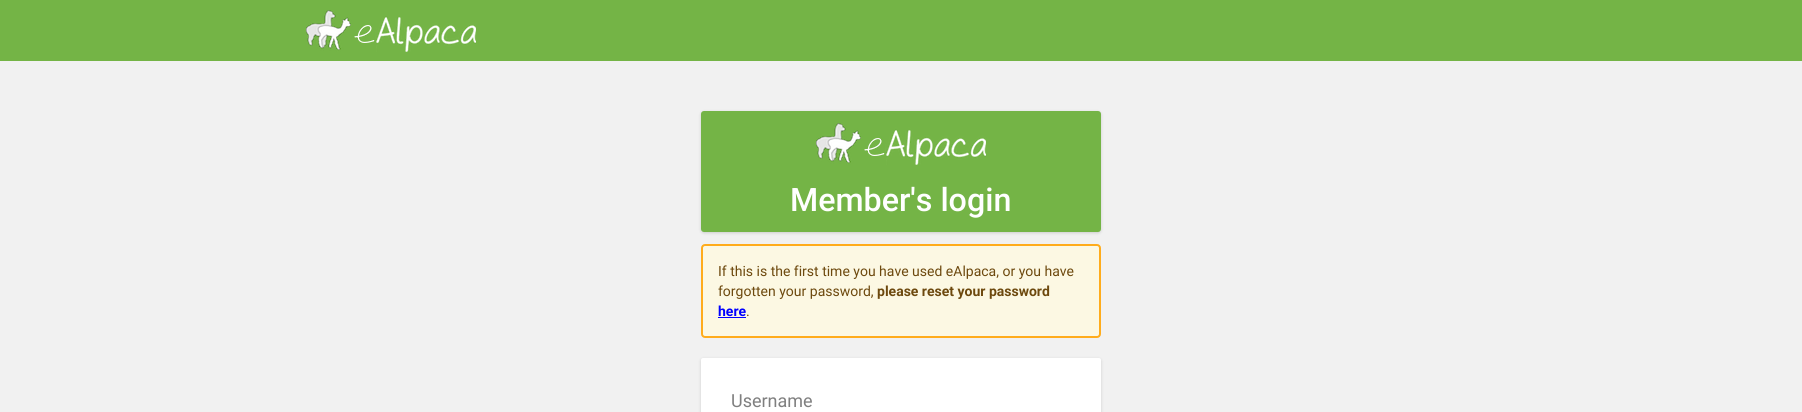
#include <cairo.h>
#include <math.h>
#include <stddef.h>


static void set_color(cairo_t *cr, unsigned color) {
    cairo_set_source_rgb(cr, (color >> 16) / 255.0, (color >> 8 & 255) / 255.0, (color & 255) / 255.0);
}

static void draw_text(cairo_t *cr, double x, double y, const char *s, const char *family, double size, int italic, int bold, unsigned color) {
    cairo_select_font_face(cr, family, italic ? CAIRO_FONT_SLANT_ITALIC : CAIRO_FONT_SLANT_NORMAL,
        bold ? CAIRO_FONT_WEIGHT_BOLD : CAIRO_FONT_WEIGHT_NORMAL);
    cairo_set_font_size(cr, size);
    set_color(cr, color);
    cairo_move_to(cr, x, y);
    cairo_show_text(cr, s);
}

static void fill_rect(cairo_t *cr, double x, double y, double w, double h, unsigned color) {
    set_color(cr, color);
    cairo_rectangle(cr, x, y, w, h);
    cairo_fill(cr);
}

static void rounded_rect(cairo_t *cr, double x, double y, double w, double h, double r) {
    cairo_new_sub_path(cr);
    cairo_arc(cr, x + w - r, y + h - r, r, 0, M_PI / 2);
    cairo_arc(cr, x + r, y + h - r, r, M_PI / 2, M_PI);
    cairo_arc(cr, x + r, y + r, r, M_PI, 1.5 * M_PI);
    cairo_arc(cr, x + w - r, y + r, r, 1.5 * M_PI, 2 * M_PI);
    cairo_close_path(cr);
}

static void draw_shadow(cairo_t *cr, double x, double y, double w, double h, double r, double blur, double alpha) {
    cairo_push_group_with_content(cr, CAIRO_CONTENT_ALPHA);
    cairo_set_operator(cr, CAIRO_OPERATOR_SOURCE);
    for (int i = 15; i >= -15 && fmin(w, h) + blur * i / 3 > 0; i -= 2) {
        double e = blur * i / 6;
        cairo_set_source_rgba(cr, 0, 0, 0, alpha * erfc((i - 1) / 8.5) / 2);
        rounded_rect(cr, x - e, y - e, w + 2 * e, h + 2 * e, fmax(0, fmin(r + e + blur * .6, fmin(w, h) / 2 + e)));
        cairo_fill(cr);
    }
    cairo_pattern_t *soft = cairo_pop_group(cr);
    cairo_mask(cr, soft);
    cairo_pattern_destroy(soft);
}

static void draw_image(cairo_t *cr, const char *path, double x, double y, double w, double h) {
    cairo_surface_t *image = cairo_image_surface_create_from_png(path);
    cairo_save(cr);
    cairo_set_source_surface(cr, image, x, y);
    cairo_rectangle(cr, x, y, w, h);
    cairo_fill(cr);
    cairo_restore(cr);
    cairo_surface_destroy(image);
}

int main(void) {
    cairo_surface_t *surface = cairo_image_surface_create(CAIRO_FORMAT_RGB24, 1802, 412);
    cairo_t *cr = cairo_create(surface);
    cairo_font_options_t *options = cairo_font_options_create();
    cairo_font_options_set_hint_metrics(options, CAIRO_HINT_METRICS_OFF);
    cairo_font_options_set_hint_style(options, CAIRO_HINT_STYLE_NONE);
    cairo_set_font_options(cr, options);
    cairo_set_miter_limit(cr, 4);
    set_color(cr, 0x74B446);
    cairo_paint(cr);
    draw_image(cr, "assets/img1.png", 306, 10, 170, 42);
    fill_rect(cr, 0, 61, 1802, 351, 0xF1F1F1);
    set_color(cr, 0x000000);
    draw_shadow(cr, 701, 112, 400, 121, 3, 1.5, 0.15);
    set_color(cr, 0x74B446);
    rounded_rect(cr, 701, 111, 400, 121, 3);
    cairo_fill(cr);
    draw_image(cr, "assets/img1.png", 816, 123, 170, 42);
    draw_text(cr, 790, 211, "Member's login", "Roboto Medium", 32.25, 0, 0, 0xFFFFFF);
    set_color(cr, 0xFCF8E3);
    rounded_rect(cr, 702, 245, 398, 92, 3);
    cairo_fill_preserve(cr);
    set_color(cr, 0xFFAC1C);
    cairo_stroke(cr);
    draw_text(cr, 718, 276, "If this is the first time you have used eAlpaca, or you have", "Roboto", 14, 0, 0, 0x6D490E);
    draw_text(cr, 718, 296, "forgotten your password,", "Roboto", 14, 0, 0, 0x6D490E);
    draw_text(cr, 877, 296, "please reset your password", "Roboto", 14, 0, 1, 0x6D490E);
    draw_text(cr, 718, 316, "here", "Roboto", 14, 0, 1, 0x0000FF);
    fill_rect(cr, 718, 317, 28, 1, 0x0000FF);
    draw_text(cr, 746, 316, ".", "Roboto", 14, 0, 0, 0x6D490E);
    set_color(cr, 0x000000);
    draw_shadow(cr, 701, 359, 400, 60, 2, 1.5, 0.15);
    set_color(cr, 0xFFFFFF);
    rounded_rect(cr, 701, 358, 400, 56, 2);
    cairo_fill(cr);
    draw_text(cr, 731, 407, "Username", "Roboto", 18, 0, 0, 0x7F7F7F);
    cairo_surface_write_to_png(surface, "output.png");
    cairo_font_options_destroy(options);
    cairo_destroy(cr);
    cairo_surface_destroy(surface);
    return 0;
}
